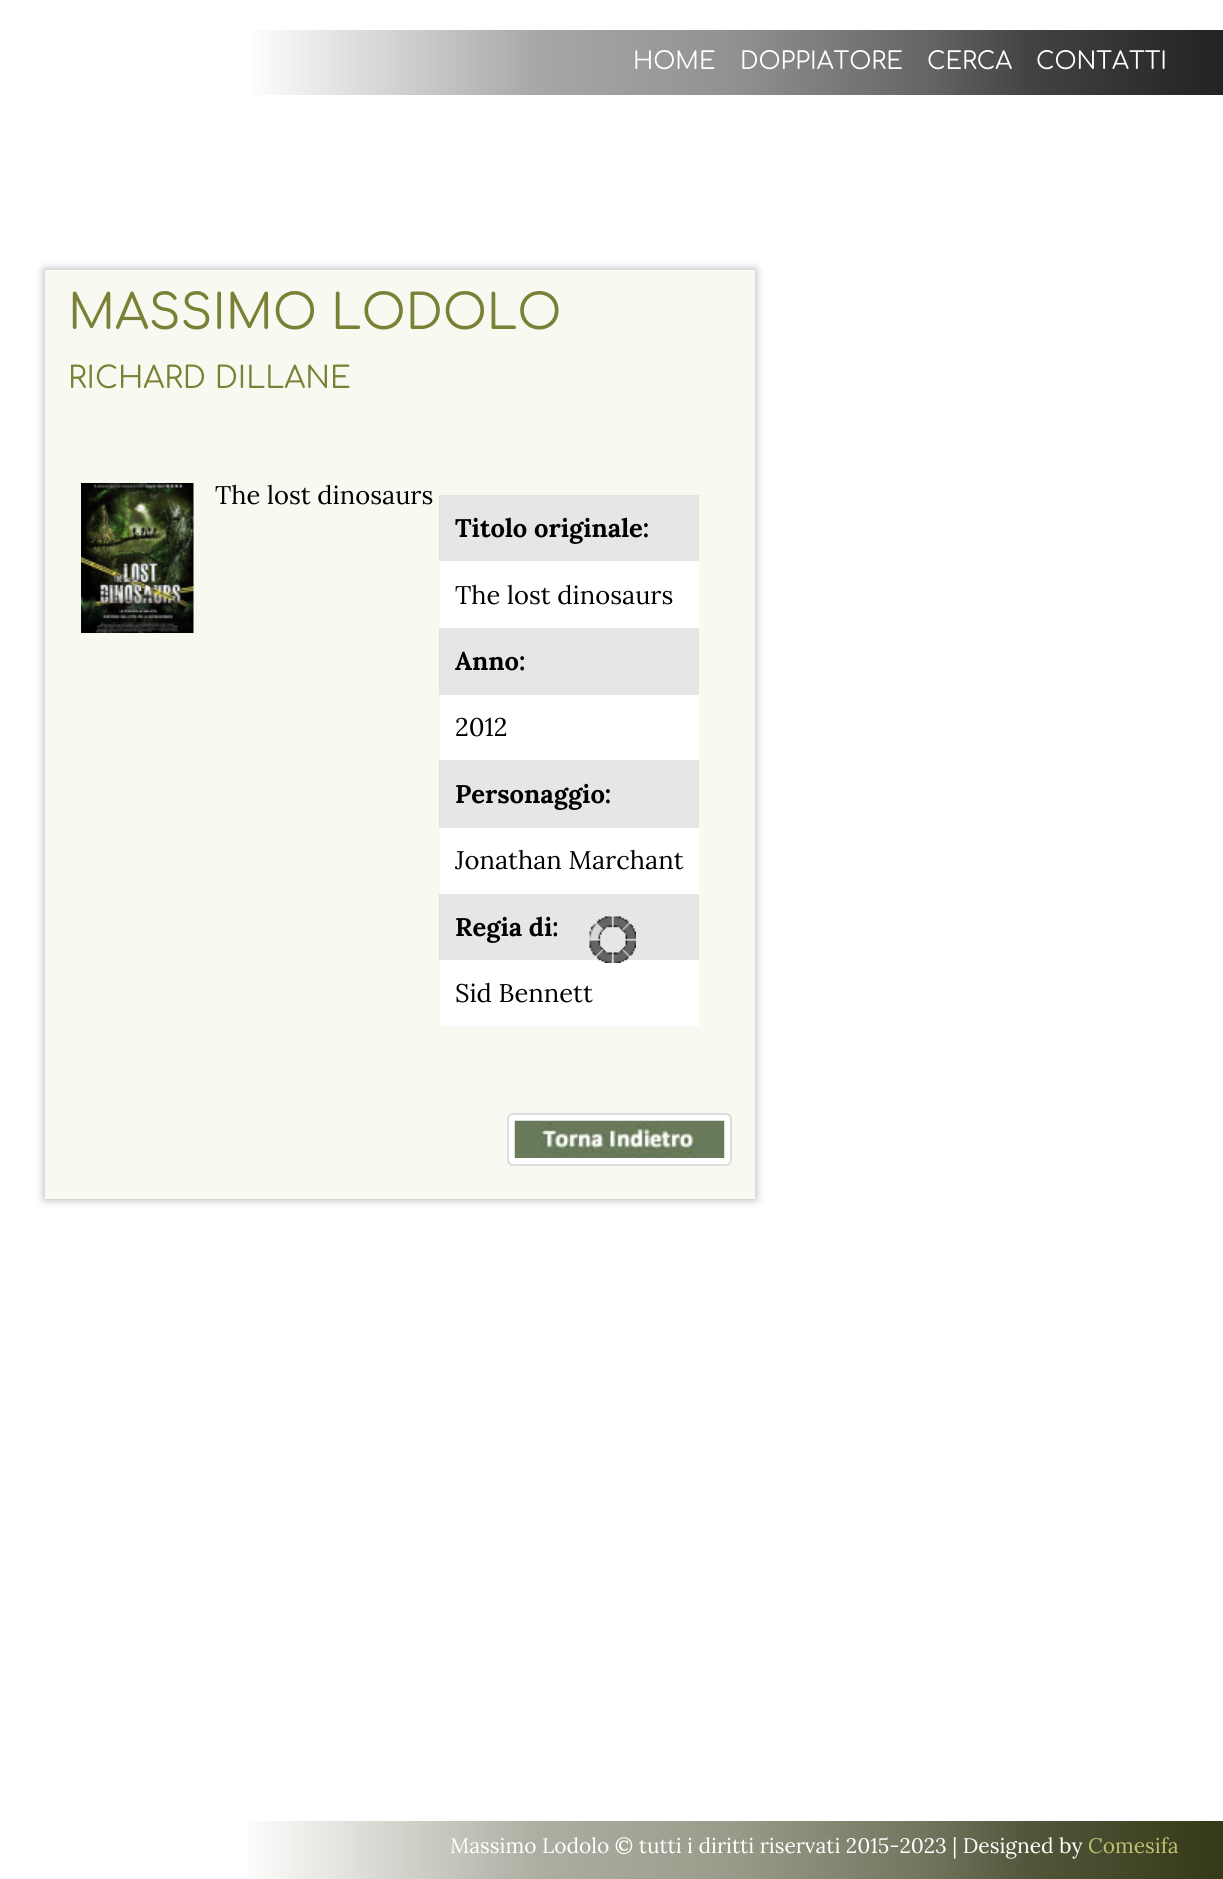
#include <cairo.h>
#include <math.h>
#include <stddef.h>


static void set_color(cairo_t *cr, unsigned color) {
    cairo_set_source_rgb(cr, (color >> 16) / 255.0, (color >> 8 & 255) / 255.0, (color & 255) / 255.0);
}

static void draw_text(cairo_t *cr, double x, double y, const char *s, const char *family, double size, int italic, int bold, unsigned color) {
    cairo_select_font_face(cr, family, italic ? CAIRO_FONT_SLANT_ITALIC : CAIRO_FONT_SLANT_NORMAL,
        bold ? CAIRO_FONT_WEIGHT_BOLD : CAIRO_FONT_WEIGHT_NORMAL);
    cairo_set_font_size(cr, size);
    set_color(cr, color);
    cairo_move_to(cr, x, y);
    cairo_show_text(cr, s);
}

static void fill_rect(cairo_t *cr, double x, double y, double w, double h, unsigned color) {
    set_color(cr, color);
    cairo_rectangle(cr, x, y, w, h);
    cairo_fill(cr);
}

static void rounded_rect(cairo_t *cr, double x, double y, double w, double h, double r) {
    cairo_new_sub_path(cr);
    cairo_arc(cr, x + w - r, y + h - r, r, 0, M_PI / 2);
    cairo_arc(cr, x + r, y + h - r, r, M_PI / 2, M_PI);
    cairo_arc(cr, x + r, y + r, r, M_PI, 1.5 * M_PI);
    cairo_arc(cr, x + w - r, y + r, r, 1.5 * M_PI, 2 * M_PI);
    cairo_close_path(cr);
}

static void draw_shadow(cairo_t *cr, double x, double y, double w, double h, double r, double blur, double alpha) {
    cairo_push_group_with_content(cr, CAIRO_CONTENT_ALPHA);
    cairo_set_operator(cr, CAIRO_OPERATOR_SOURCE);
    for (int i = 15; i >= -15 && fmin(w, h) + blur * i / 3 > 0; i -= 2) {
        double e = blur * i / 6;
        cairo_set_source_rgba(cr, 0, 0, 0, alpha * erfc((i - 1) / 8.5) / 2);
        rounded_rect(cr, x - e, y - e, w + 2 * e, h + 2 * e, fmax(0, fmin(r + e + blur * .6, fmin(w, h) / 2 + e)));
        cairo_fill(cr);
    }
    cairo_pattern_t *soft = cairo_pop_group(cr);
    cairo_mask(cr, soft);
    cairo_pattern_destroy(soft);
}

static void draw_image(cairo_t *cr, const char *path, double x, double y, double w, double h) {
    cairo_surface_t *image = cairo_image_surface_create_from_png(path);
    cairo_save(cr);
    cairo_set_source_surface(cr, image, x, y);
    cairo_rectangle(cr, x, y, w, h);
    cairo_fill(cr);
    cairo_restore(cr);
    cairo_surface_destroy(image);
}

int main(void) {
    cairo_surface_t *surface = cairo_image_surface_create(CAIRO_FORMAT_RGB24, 1223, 1879);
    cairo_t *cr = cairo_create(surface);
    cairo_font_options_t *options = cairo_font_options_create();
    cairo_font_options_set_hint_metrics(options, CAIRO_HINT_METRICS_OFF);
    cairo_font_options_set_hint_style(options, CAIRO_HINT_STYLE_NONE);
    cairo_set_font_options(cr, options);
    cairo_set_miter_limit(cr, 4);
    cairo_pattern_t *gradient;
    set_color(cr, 0xFFFFFF);
    cairo_paint(cr);
    gradient = cairo_pattern_create_linear(245, 62, 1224, 62);
    cairo_pattern_add_color_stop_rgba(gradient, 0, 1, 1, 1, 1);
    cairo_pattern_add_color_stop_rgba(gradient, 0.3, 0.655, 0.655, 0.655, 1);
    cairo_pattern_add_color_stop_rgba(gradient, 0.5, 0.569, 0.569, 0.569, 1);
    cairo_pattern_add_color_stop_rgba(gradient, 0.7, 0.392, 0.392, 0.392, 1);
    cairo_pattern_add_color_stop_rgba(gradient, 0.8, 0.263, 0.263, 0.263, 1);
    cairo_pattern_add_color_stop_rgba(gradient, 1, 0.133, 0.133, 0.133, 1);
    cairo_set_source(cr, gradient);
    cairo_pattern_destroy(gradient);
    cairo_rectangle(cr, 253, 30, 970, 65);
    cairo_fill(cr);
    draw_text(cr, 633, 69, "HOME", "Comfortaa", 24, 0, 0, 0xFFFFFF);
    draw_text(cr, 740, 69, "DOPPIATORE", "Comfortaa", 24, 0, 0, 0xFFFFFF);
    draw_text(cr, 927, 69, "CERCA", "Comfortaa", 24, 0, 0, 0xFFFFFF);
    draw_text(cr, 1036, 69, "CONTATTI", "Comfortaa", 24, 0, 0, 0xFFFFFF);
    cairo_save(cr);
    cairo_set_fill_rule(cr, CAIRO_FILL_RULE_EVEN_ODD);
    cairo_new_path(cr);
    cairo_move_to(cr, 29, 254);
    cairo_line_to(cr, 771, 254);
    cairo_line_to(cr, 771, 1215);
    cairo_line_to(cr, 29, 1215);
    cairo_close_path(cr);
    cairo_move_to(cr, 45, 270);
    cairo_line_to(cr, 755, 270);
    cairo_line_to(cr, 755, 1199);
    cairo_line_to(cr, 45, 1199);
    cairo_close_path(cr);
    cairo_clip(cr);
    set_color(cr, 0x000000);
    draw_shadow(cr, 45, 270, 710, 929, 0, 5, 0.33);
    cairo_restore(cr);
    cairo_set_source_rgba(cr, 0.965, 0.969, 0.929, 0.8);
    cairo_rectangle(cr, 45, 270, 710, 929);
    cairo_fill(cr);
    draw_text(cr, 68, 329, "MASSIMO LODOLO", "Comfortaa", 48, 0, 0, 0x7A8136);
    draw_text(cr, 68, 388, "RICHARD DILLANE", "Comfortaa", 30, 0, 0, 0x7A8136);
    draw_image(cr, "assets/img1.png", 81, 483, 113, 150);
    draw_text(cr, 215, 504, "The lost dinosaurs", "Lora", 25.5, 0, 0, 0x000000);
    fill_rect(cr, 440, 495, 259, 531, 0xFFFFFF);
    cairo_set_source_rgba(cr, 0, 0, 0, 0.1);
    cairo_rectangle(cr, 439, 495, 260, 66);
    cairo_fill(cr);
    draw_text(cr, 455, 537, "Titolo originale:", "Lora", 25.5, 0, 1, 0x000000);
    draw_text(cr, 455, 604, "The lost dinosaurs", "Lora", 25.5, 0, 0, 0x000000);
    cairo_set_source_rgba(cr, 0, 0, 0, 0.1);
    cairo_rectangle(cr, 439, 628, 260, 67);
    cairo_fill(cr);
    draw_text(cr, 455, 670, "Anno:", "Lora", 25.5, 0, 1, 0x000000);
    draw_text(cr, 455, 736, "2012", "Lora", 25.5, 0, 0, 0x000000);
    cairo_set_source_rgba(cr, 0, 0, 0, 0.1);
    cairo_rectangle(cr, 439, 760, 260, 68);
    cairo_fill(cr);
    draw_text(cr, 455, 803, "Personaggio:", "Lora", 25.5, 0, 1, 0x000000);
    draw_text(cr, 455, 869, "Jonathan Marchant", "Lora", 25.5, 0, 0, 0x000000);
    cairo_set_source_rgba(cr, 0, 0, 0, 0.1);
    cairo_rectangle(cr, 439, 894, 260, 66);
    cairo_fill(cr);
    draw_text(cr, 455, 936, "Regia di:", "Lora", 25.5, 0, 1, 0x000000);
    draw_text(cr, 455, 1002, "Sid Bennett", "Lora", 25.5, 0, 0, 0x000000);
    set_color(cr, 0xFFFFFF);
    rounded_rect(cr, 508, 1114, 223, 51, 5);
    cairo_fill_preserve(cr);
    set_color(cr, 0xDDDDDD);
    cairo_stroke(cr);
    draw_image(cr, "assets/img2.png", 514, 1120, 211, 38);
    draw_image(cr, "assets/img3.png", 589, 916, 47, 47);
    gradient = cairo_pattern_create_linear(245, 1850, 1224, 1850);
    cairo_pattern_add_color_stop_rgba(gradient, 0, 0.992, 0.992, 0.992, 1);
    cairo_pattern_add_color_stop_rgba(gradient, 0.3, 0.678, 0.682, 0.631, 1);
    cairo_pattern_add_color_stop_rgba(gradient, 0.5, 0.6, 0.608, 0.541, 1);
    cairo_pattern_add_color_stop_rgba(gradient, 0.7, 0.443, 0.451, 0.361, 1);
    cairo_pattern_add_color_stop_rgba(gradient, 0.8, 0.325, 0.337, 0.227, 1);
    cairo_pattern_add_color_stop_rgba(gradient, 1, 0.208, 0.22, 0.09, 1);
    cairo_set_source(cr, gradient);
    cairo_pattern_destroy(gradient);
    cairo_rectangle(cr, 247, 1821, 976, 58);
    cairo_fill(cr);
    draw_text(cr, 450, 1853, "Massimo Lodolo © tutti i diritti riservati 2015-2023 | Designed by", "Lora", 21, 0, 0, 0xFFFFFF);
    draw_text(cr, 1088, 1853, "Comesifa", "Lora", 21, 0, 0, 0xBAC36F);
    cairo_surface_write_to_png(surface, "output.png");
    cairo_font_options_destroy(options);
    cairo_destroy(cr);
    cairo_surface_destroy(surface);
    return 0;
}
